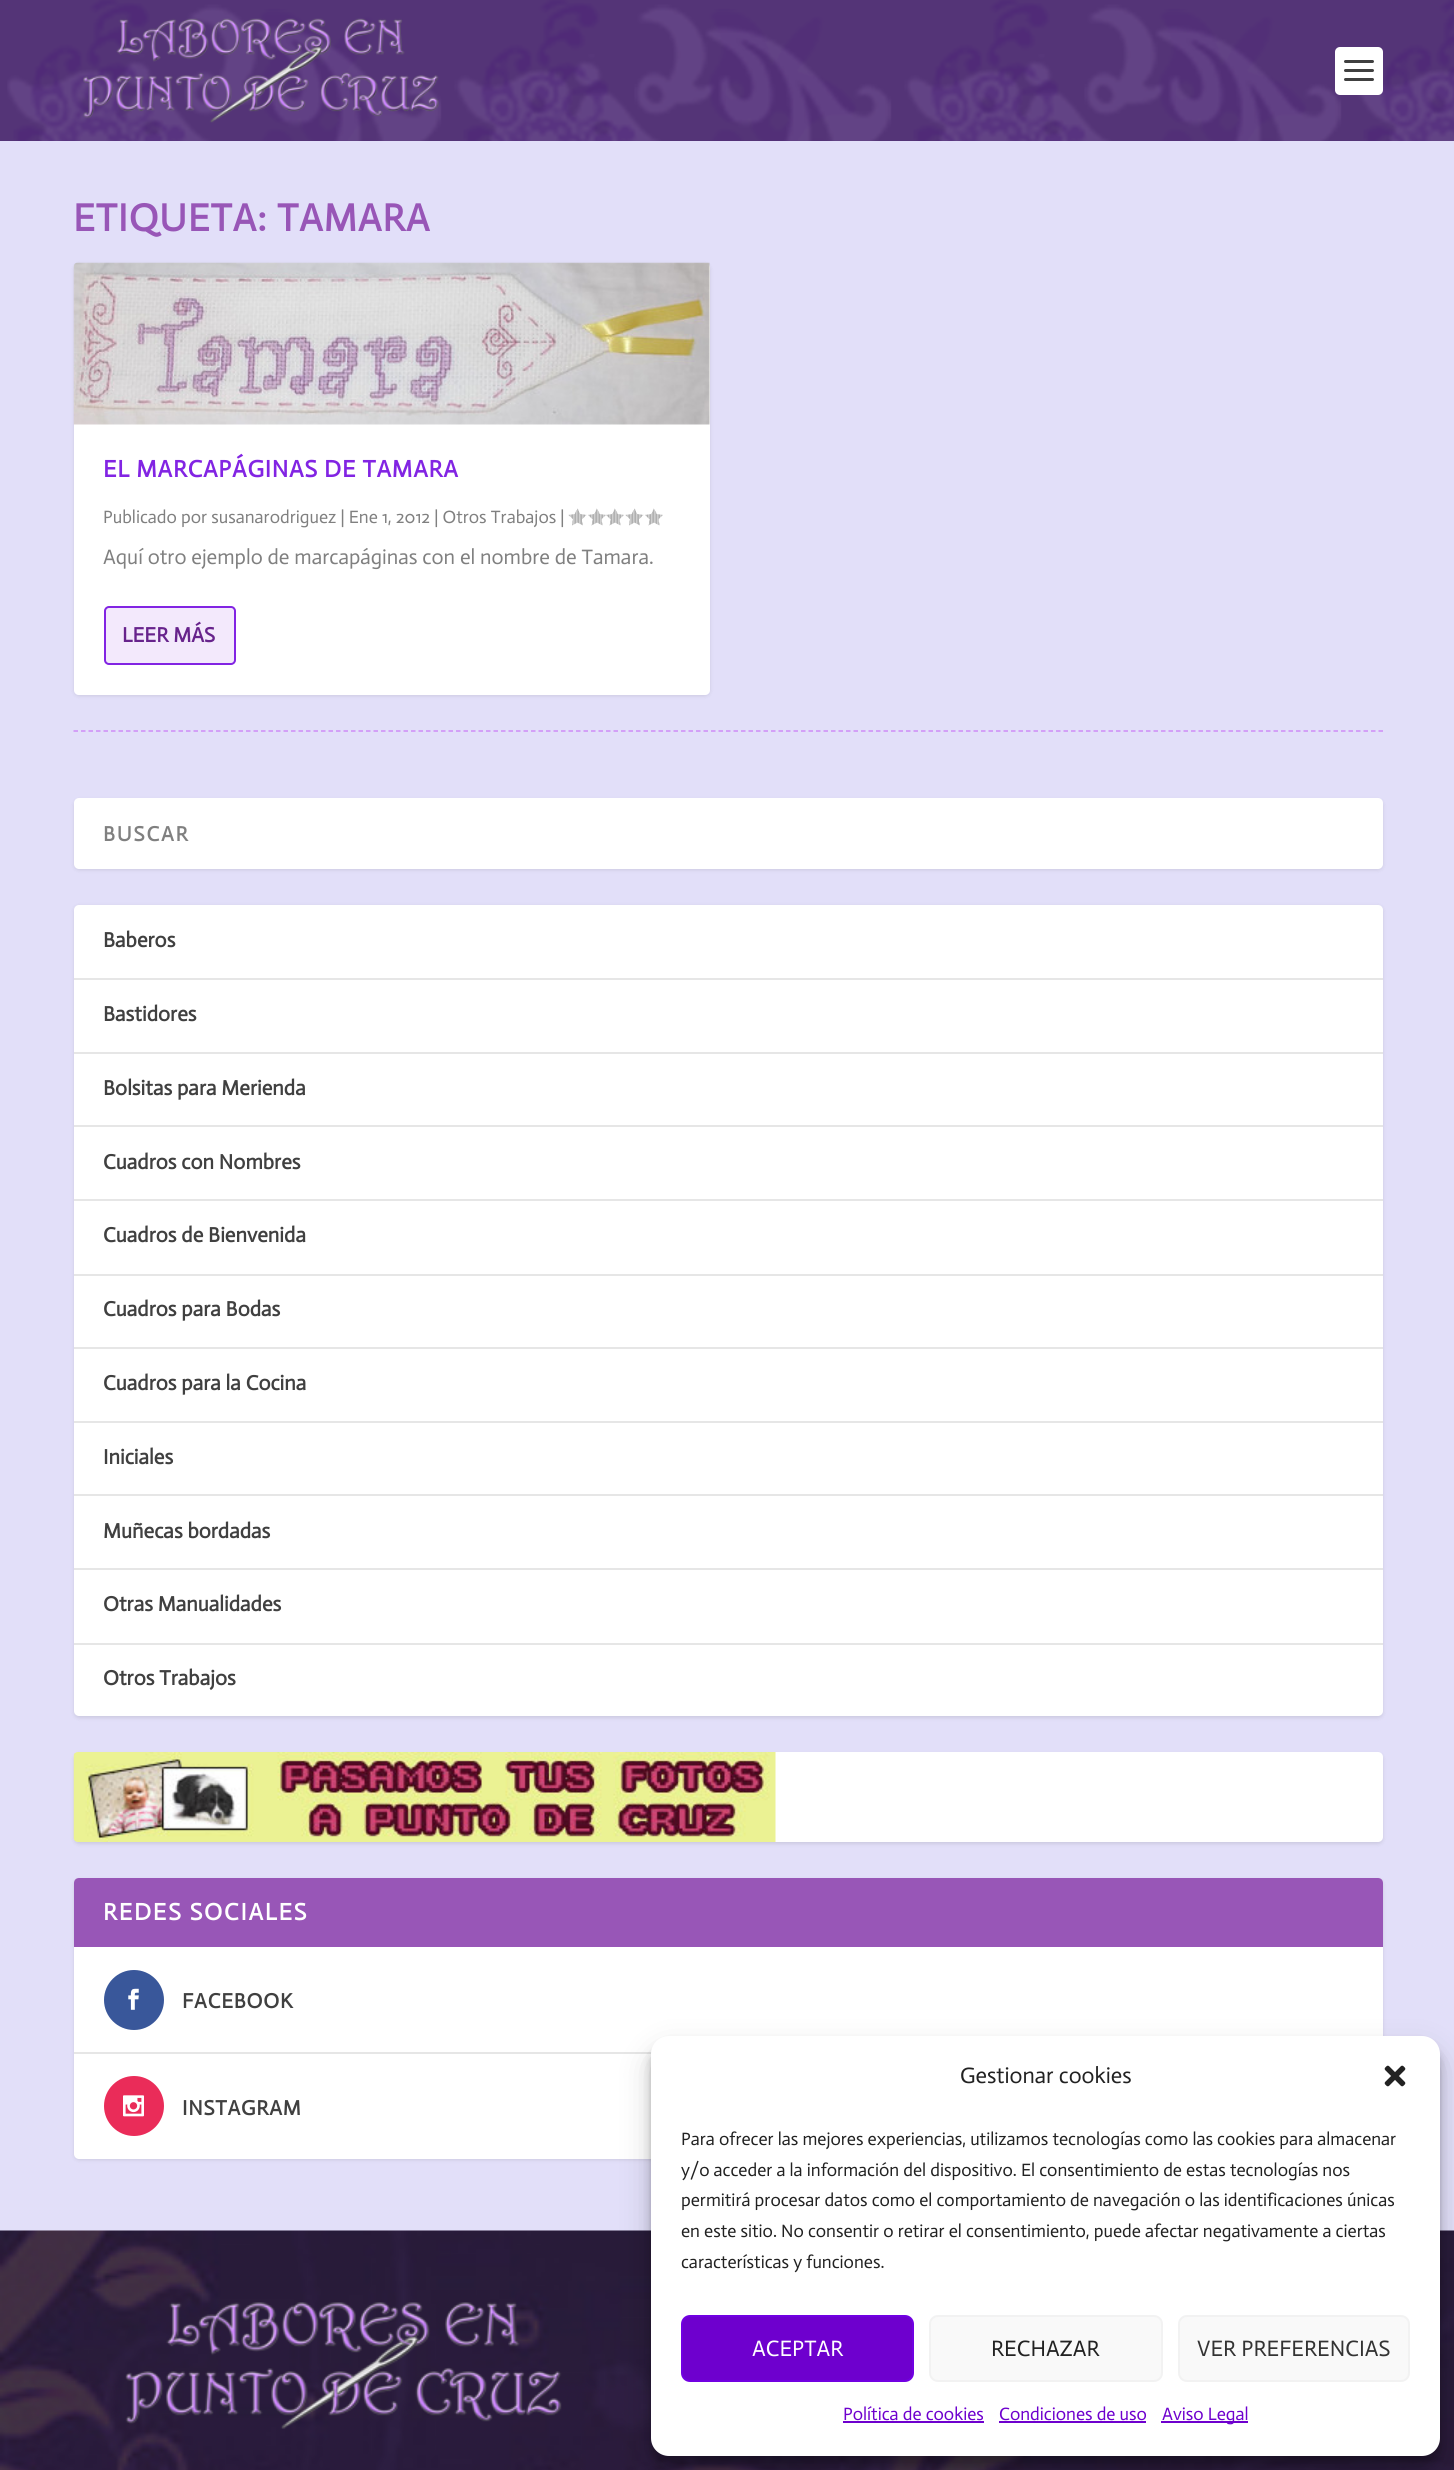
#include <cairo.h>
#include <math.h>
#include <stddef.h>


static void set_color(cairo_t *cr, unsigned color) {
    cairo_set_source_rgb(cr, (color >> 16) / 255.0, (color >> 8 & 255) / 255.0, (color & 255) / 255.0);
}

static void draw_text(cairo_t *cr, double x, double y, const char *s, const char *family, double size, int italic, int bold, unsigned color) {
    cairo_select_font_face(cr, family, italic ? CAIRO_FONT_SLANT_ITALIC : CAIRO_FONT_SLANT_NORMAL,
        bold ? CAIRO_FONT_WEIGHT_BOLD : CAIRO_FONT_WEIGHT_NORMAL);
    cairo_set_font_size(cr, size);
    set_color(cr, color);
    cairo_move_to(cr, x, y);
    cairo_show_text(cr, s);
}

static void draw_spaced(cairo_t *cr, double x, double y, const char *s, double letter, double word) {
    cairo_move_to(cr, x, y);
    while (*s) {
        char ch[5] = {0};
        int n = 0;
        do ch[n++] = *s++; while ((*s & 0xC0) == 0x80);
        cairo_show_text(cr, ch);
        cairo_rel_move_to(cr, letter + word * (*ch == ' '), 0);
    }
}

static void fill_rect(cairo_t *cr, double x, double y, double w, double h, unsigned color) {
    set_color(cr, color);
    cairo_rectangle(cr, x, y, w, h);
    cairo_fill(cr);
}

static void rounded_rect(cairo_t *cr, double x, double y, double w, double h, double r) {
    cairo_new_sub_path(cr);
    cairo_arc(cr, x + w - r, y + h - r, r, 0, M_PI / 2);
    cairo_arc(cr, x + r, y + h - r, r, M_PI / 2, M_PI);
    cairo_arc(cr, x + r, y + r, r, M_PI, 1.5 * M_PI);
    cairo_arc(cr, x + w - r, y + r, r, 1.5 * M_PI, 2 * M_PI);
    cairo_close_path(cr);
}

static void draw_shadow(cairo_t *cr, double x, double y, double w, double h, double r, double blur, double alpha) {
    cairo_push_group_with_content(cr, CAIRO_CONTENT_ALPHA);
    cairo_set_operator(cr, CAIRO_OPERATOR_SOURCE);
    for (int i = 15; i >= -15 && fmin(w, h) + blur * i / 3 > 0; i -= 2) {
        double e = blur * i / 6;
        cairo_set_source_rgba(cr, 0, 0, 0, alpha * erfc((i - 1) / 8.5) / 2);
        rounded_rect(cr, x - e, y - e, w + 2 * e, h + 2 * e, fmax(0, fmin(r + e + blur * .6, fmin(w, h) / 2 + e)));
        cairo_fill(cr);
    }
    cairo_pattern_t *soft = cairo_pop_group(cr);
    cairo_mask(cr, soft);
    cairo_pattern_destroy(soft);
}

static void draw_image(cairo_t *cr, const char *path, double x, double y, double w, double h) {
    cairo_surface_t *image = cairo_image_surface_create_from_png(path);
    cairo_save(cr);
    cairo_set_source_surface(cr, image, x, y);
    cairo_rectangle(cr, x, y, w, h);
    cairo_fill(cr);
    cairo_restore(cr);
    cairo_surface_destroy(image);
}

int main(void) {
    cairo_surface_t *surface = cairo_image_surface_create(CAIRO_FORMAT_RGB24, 1454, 2470);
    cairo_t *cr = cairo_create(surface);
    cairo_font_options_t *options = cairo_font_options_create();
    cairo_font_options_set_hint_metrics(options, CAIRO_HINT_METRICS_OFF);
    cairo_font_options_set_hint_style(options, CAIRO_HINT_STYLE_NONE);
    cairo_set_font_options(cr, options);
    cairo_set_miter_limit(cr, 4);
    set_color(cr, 0xE2DFF9);
    cairo_paint(cr);
    fill_rect(cr, 0, 0, 7, 141, 0x543477);
    draw_image(cr, "assets/img1.png", 7, 0, 1447, 141);
    draw_image(cr, "assets/img2.png", 83, 18, 356, 105);
    set_color(cr, 0xFFFFFF);
    rounded_rect(cr, 1335, 47, 48, 48, 5);
    cairo_fill(cr);
    set_color(cr, 0x404040);
    rounded_rect(cr, 1344, 60, 30, 3, 1.5);
    cairo_fill(cr);
    rounded_rect(cr, 1344, 69, 30, 3, 1.5);
    cairo_fill(cr);
    rounded_rect(cr, 1344, 78, 30, 3, 1.5);
    cairo_fill(cr);
    cairo_select_font_face(cr, "Actor", CAIRO_FONT_SLANT_NORMAL, CAIRO_FONT_WEIGHT_BOLD);
    cairo_set_font_size(cr, 39);
    set_color(cr, 0x9856B7);
    draw_spaced(cr, 73, 231, "ETIQUETA: TAMARA", 0.75, 0);
    cairo_new_path(cr);
    cairo_move_to(cr, 73.5, 731);
    cairo_line_to(cr, 1383, 731);
    set_color(cr, 0xCE8BF6);
    cairo_set_line_width(cr, 1.5);
    cairo_set_dash(cr, (double[]){4.5, 3}, 2, 0);
    cairo_stroke(cr);
    cairo_save(cr);
    cairo_set_fill_rule(cr, CAIRO_FILL_RULE_EVEN_ODD);
    cairo_new_path(cr);
    cairo_move_to(cr, 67, 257);
    cairo_line_to(cr, 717, 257);
    cairo_line_to(cr, 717, 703);
    cairo_line_to(cr, 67, 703);
    cairo_close_path(cr);
    cairo_move_to(cr, 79, 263);
    cairo_line_to(cr, 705, 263);
    cairo_curve_to(cr, 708, 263, 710, 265, 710, 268);
    cairo_line_to(cr, 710, 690);
    cairo_curve_to(cr, 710, 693, 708, 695, 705, 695);
    cairo_line_to(cr, 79, 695);
    cairo_curve_to(cr, 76, 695, 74, 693, 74, 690);
    cairo_line_to(cr, 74, 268);
    cairo_curve_to(cr, 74, 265, 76, 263, 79, 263);
    cairo_close_path(cr);
    cairo_clip(cr);
    set_color(cr, 0x000000);
    draw_shadow(cr, 74, 264, 636, 432, 5, 2, 0.1);
    cairo_restore(cr);
    set_color(cr, 0xFFFFFF);
    rounded_rect(cr, 74, 263, 636, 432, 5);
    cairo_fill(cr);
    draw_image(cr, "assets/img3.png", 73, 262, 637, 163);
    cairo_set_font_size(cr, 24);
    set_color(cr, 0x8224E3);
    draw_spaced(cr, 103, 477, "EL MARCAPÁGINAS DE TAMARA", 0.75, 0);
    draw_text(cr, 103, 523, "Publicado por susanarodriguez | Ene 1, 2012 | Otros Trabajos |", "Actor", 18, 0, 0, 0x808080);
    draw_image(cr, "assets/img4.png", 568, 508, 19, 18);
    draw_image(cr, "assets/img5.png", 588, 508, 18, 18);
    draw_image(cr, "assets/img5.png", 606, 508, 18, 18);
    draw_image(cr, "assets/img4.png", 625, 508, 19, 18);
    draw_image(cr, "assets/img5.png", 645, 508, 18, 18);
    draw_text(cr, 103, 564, "Aquí otro ejemplo de marcapáginas con el nombre de Tamara.", "Actor", 21, 0, 0, 0x808080);
    set_color(cr, 0xF3E9FC);
    rounded_rect(cr, 105, 607, 130, 57, 4);
    cairo_fill_preserve(cr);
    set_color(cr, 0x8224E3);
    cairo_set_line_width(cr, 2);
    cairo_set_dash(cr, NULL, 0, 0);
    cairo_stroke(cr);
    draw_text(cr, 122, 642, "LEER MÁS", "Actor", 21, 0, 1, 0x67238C);
    set_color(cr, 0x000000);
    draw_shadow(cr, 74, 800, 1309, 70, 5, 2, 0.1);
    set_color(cr, 0xFFFFFF);
    rounded_rect(cr, 74, 798, 1309, 71, 5);
    cairo_fill(cr);
    set_color(cr, 0x808080);
    draw_spaced(cr, 103, 841, "BUSCAR", 1.75, 0);
    set_color(cr, 0x000000);
    draw_shadow(cr, 74, 906, 1309, 812, 5, 2, 0.1);
    set_color(cr, 0xFFFFFF);
    rounded_rect(cr, 74, 905, 1309, 811, 5);
    cairo_fill(cr);
    fill_rect(cr, 74, 978, 1309, 2, 0xE6E6E6);
    draw_text(cr, 103, 947, "Baberos", "Actor", 21, 0, 1, 0x404040);
    fill_rect(cr, 74, 1052, 1309, 2, 0xE6E6E6);
    draw_text(cr, 103, 1021, "Bastidores", "Actor", 21, 0, 1, 0x404040);
    fill_rect(cr, 74, 1125, 1309, 2, 0xE6E6E6);
    draw_text(cr, 103, 1095, "Bolsitas para Merienda", "Actor", 21, 0, 1, 0x404040);
    fill_rect(cr, 74, 1199, 1309, 2, 0xE6E6E6);
    draw_text(cr, 103, 1169, "Cuadros con Nombres", "Actor", 21, 0, 1, 0x404040);
    fill_rect(cr, 74, 1274, 1309, 2, 0xE6E6E6);
    draw_text(cr, 103, 1242, "Cuadros de Bienvenida", "Actor", 21, 0, 1, 0x404040);
    fill_rect(cr, 74, 1347, 1309, 2, 0xE6E6E6);
    draw_text(cr, 103, 1316, "Cuadros para Bodas", "Actor", 21, 0, 1, 0x404040);
    fill_rect(cr, 74, 1421, 1309, 2, 0xE6E6E6);
    draw_text(cr, 103, 1390, "Cuadros para la Cocina", "Actor", 21, 0, 1, 0x404040);
    fill_rect(cr, 74, 1494, 1309, 2, 0xE6E6E6);
    draw_text(cr, 103, 1464, "Iniciales", "Actor", 21, 0, 1, 0x404040);
    fill_rect(cr, 74, 1568, 1309, 2, 0xE6E6E6);
    draw_text(cr, 103, 1538, "Muñecas bordadas", "Actor", 21, 0, 1, 0x404040);
    fill_rect(cr, 74, 1643, 1309, 2, 0xE6E6E6);
    draw_text(cr, 103, 1611, "Otras Manualidades", "Actor", 21, 0, 1, 0x404040);
    draw_text(cr, 103, 1685, "Otros Trabajos", "Actor", 21, 0, 1, 0x404040);
    set_color(cr, 0x000000);
    draw_shadow(cr, 74, 1754, 1309, 90, 5, 2, 0.1);
    set_color(cr, 0xFFFFFF);
    rounded_rect(cr, 74, 1752, 1309, 90, 5);
    cairo_fill(cr);
    draw_image(cr, "assets/img6.png", 73, 1752, 703, 90);
    set_color(cr, 0x000000);
    draw_shadow(cr, 74, 1880, 1309, 280, 5, 2, 0.1);
    set_color(cr, 0xFFFFFF);
    rounded_rect(cr, 74, 1878, 1309, 281, 5);
    cairo_fill(cr);
    set_color(cr, 0x9856B7);
    cairo_new_path(cr);
    cairo_move_to(cr, 79, 1878);
    cairo_line_to(cr, 1378, 1878);
    cairo_curve_to(cr, 1381, 1878, 1383, 1880, 1383, 1883);
    cairo_line_to(cr, 1383, 1947);
    cairo_line_to(cr, 74, 1947);
    cairo_line_to(cr, 74, 1883);
    cairo_curve_to(cr, 74, 1880, 76, 1878, 79, 1878);
    cairo_close_path(cr);
    cairo_fill(cr);
    cairo_set_font_size(cr, 24);
    set_color(cr, 0xFFFFFF);
    draw_spaced(cr, 103, 1920, "REDES SOCIALES", 1.75, 0);
    fill_rect(cr, 74, 2052, 578, 2, 0xE6E6E6);
    set_color(cr, 0x39579A);
    cairo_new_path(cr);
    cairo_arc(cr, 134, 2000, 30, 0, 2 * M_PI);
    cairo_fill(cr);
    draw_image(cr, "assets/img7.png", 128, 1988, 11, 22);
    cairo_set_font_size(cr, 21);
    set_color(cr, 0x404040);
    draw_spaced(cr, 182, 2008, "FACEBOOK", 0.75, 0);
    set_color(cr, 0xEA2C59);
    cairo_new_path(cr);
    cairo_arc(cr, 134, 2106, 30, 0, 2 * M_PI);
    cairo_fill(cr);
    draw_image(cr, "assets/img8.png", 123, 2095, 21, 22);
    set_color(cr, 0x404040);
    draw_spaced(cr, 182, 2115, "INSTAGRAM", 0.75, 0);
    draw_image(cr, "assets/img9.png", 0, 2230, 1454, 240);
    draw_image(cr, "assets/img10.png", 125, 2302, 437, 127);
    set_color(cr, 0x000000);
    draw_shadow(cr, 651, 2045, 789, 420, 18, 4.5, 0.23);
    draw_shadow(cr, 651, 2051, 789, 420, 18, 15, 0.19);
    set_color(cr, 0xFFFFFF);
    rounded_rect(cr, 651, 2036, 789, 420, 18);
    cairo_fill(cr);
    draw_text(cr, 960, 2083, "Gestionar cookies", "Actor", 22.5, 0, 0, 0x222222);
    draw_image(cr, "assets/img11.png", 1384, 2065, 22, 22);
    draw_text(cr, 681, 2145, "Para ofrecer las mejores experiencias, utilizamos tecnologías como las cookies para almacenar", "Actor", 18, 0, 0, 0x222222);
    draw_text(cr, 681, 2176, "y/o acceder a la información del dispositivo. El consentimiento de estas tecnologías nos", "Actor", 18, 0, 0, 0x222222);
    draw_text(cr, 681, 2206, "permitirá procesar datos como el comportamiento de navegación o las identificaciones únicas", "Actor", 18, 0, 0, 0x222222);
    draw_text(cr, 681, 2237, "en este sitio. No consentir o retirar el consentimiento, puede afectar negativamente a ciertas", "Actor", 18, 0, 0, 0x222222);
    draw_text(cr, 681, 2268, "características y funciones.", "Actor", 18, 0, 0, 0x222222);
    set_color(cr, 0x6E00CE);
    rounded_rect(cr, 682, 2316, 231, 65, 8);
    cairo_fill_preserve(cr);
    set_color(cr, 0x7100E2);
    cairo_stroke(cr);
    draw_text(cr, 752, 2356, "ACEPTAR", "Actor", 22.5, 0, 0, 0xFFFFFF);
    set_color(cr, 0xF9F9F9);
    rounded_rect(cr, 930, 2316, 232, 65, 8);
    cairo_fill_preserve(cr);
    set_color(cr, 0xF2F2F2);
    cairo_stroke(cr);
    draw_text(cr, 991, 2356, "RECHAZAR", "Actor", 22.5, 0, 0, 0x222222);
    set_color(cr, 0xF9F9F9);
    rounded_rect(cr, 1179, 2316, 230, 65, 8);
    cairo_fill_preserve(cr);
    set_color(cr, 0xF2F2F2);
    cairo_stroke(cr);
    draw_text(cr, 1197, 2356, "VER PREFERENCIAS", "Actor", 22.5, 0, 0, 0x333333);
    draw_text(cr, 843, 2420, "Política de cookies", "Actor", 18, 0, 0, 0x6E00CE);
    fill_rect(cr, 843, 2421, 141, 2, 0x6E00CE);
    draw_text(cr, 999, 2420, "Condiciones de uso", "Actor", 18, 0, 0, 0x6E00CE);
    fill_rect(cr, 999, 2421, 147, 2, 0x6E00CE);
    fill_rect(cr, 1161, 2421, 87, 2, 0x6E00CE);
    draw_text(cr, 1162, 2420, "Aviso Legal", "Actor", 18, 0, 0, 0x6E00CE);
    cairo_surface_write_to_png(surface, "output.png");
    cairo_font_options_destroy(options);
    cairo_destroy(cr);
    cairo_surface_destroy(surface);
    return 0;
}
